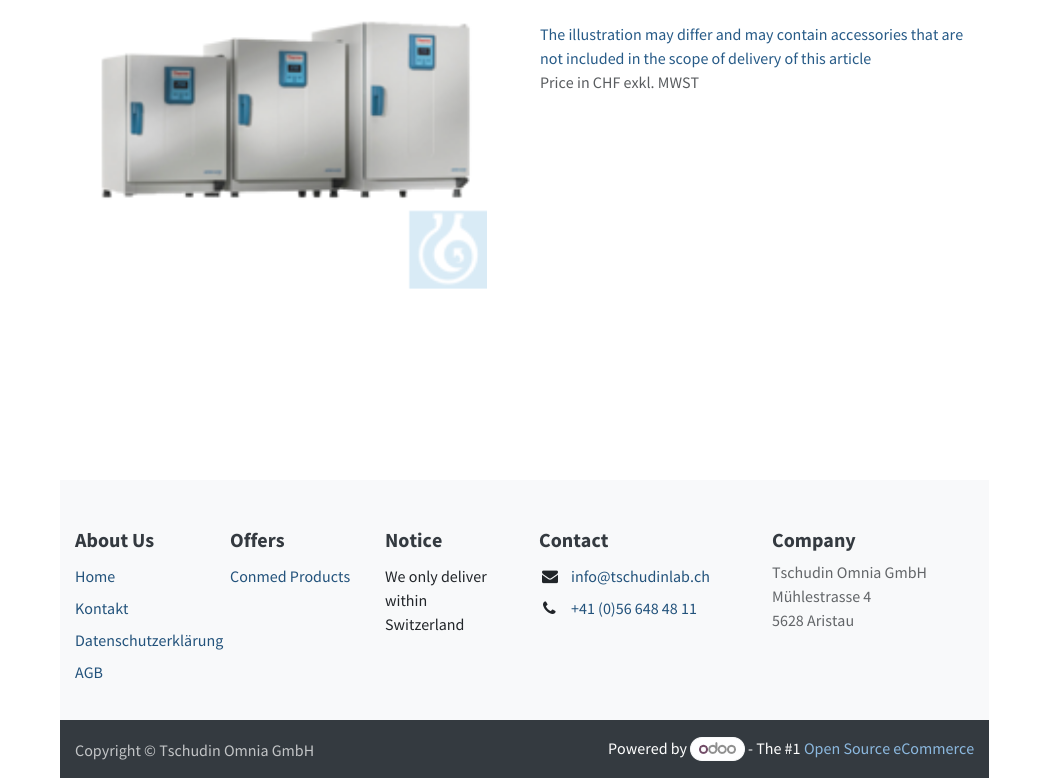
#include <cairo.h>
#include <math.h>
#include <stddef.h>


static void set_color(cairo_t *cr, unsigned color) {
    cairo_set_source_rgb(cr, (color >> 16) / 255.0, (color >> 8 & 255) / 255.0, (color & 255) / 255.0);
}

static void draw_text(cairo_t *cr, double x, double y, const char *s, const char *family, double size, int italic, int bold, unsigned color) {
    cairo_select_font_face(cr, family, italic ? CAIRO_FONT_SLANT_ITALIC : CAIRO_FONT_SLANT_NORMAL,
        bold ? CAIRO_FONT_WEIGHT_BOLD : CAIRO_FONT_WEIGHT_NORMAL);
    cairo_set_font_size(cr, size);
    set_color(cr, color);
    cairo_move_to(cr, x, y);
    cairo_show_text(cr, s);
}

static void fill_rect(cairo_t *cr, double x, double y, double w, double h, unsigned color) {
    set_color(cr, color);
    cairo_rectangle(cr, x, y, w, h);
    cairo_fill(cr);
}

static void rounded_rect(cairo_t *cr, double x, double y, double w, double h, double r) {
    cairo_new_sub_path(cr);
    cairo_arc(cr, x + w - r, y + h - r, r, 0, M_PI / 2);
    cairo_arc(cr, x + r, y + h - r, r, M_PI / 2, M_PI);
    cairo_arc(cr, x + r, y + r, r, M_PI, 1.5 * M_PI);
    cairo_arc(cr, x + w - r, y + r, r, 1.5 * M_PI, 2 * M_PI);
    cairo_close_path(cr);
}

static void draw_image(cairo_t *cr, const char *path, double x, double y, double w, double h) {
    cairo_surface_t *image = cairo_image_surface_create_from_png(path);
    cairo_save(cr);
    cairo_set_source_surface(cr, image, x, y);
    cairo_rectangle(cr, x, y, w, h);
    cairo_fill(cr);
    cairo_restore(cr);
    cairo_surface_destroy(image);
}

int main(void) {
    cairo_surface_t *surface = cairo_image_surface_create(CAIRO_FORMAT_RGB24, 1049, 778);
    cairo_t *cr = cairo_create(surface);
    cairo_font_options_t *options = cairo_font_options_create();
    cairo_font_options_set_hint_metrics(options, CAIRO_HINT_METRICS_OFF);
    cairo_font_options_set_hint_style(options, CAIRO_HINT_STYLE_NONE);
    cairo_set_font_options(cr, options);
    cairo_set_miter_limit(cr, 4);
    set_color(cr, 0xFFFFFF);
    cairo_paint(cr);
    draw_image(cr, "assets/img1.png", 101, 21, 386, 268);
    draw_text(cr, 540, 40, "The illustration may differ and may contain accessories that are", "Source Sans Pro", 16, 0, 0, 0x265A87);
    draw_text(cr, 540, 64, "not included in the scope of delivery of this article", "Source Sans Pro", 16, 0, 0, 0x265A87);
    draw_text(cr, 540, 88, "Price in CHF exkl. MWST", "Source Sans Pro", 16, 0, 0, 0x595C5F);
    fill_rect(cr, 60, 480, 929, 240, 0xF8F9FA);
    draw_text(cr, 75, 547, "About Us", "Source Sans Pro", 20, 0, 1, 0x343A40);
    draw_text(cr, 75, 582, "Home", "Source Sans Pro", 16, 0, 0, 0x22527B);
    draw_text(cr, 75, 614, "Kontakt", "Source Sans Pro", 16, 0, 0, 0x22527B);
    draw_text(cr, 75, 646, "Datenschutzerklärung", "Source Sans Pro", 16, 0, 0, 0x22527B);
    draw_text(cr, 75, 678, "AGB", "Source Sans Pro", 16, 0, 0, 0x22527B);
    draw_text(cr, 230, 547, "Offers", "Source Sans Pro", 20, 0, 1, 0x343A40);
    draw_text(cr, 230, 582, "Conmed Products", "Source Sans Pro", 16, 0, 0, 0x22527B);
    draw_text(cr, 385, 547, "Notice", "Source Sans Pro", 20, 0, 1, 0x343A40);
    draw_text(cr, 385, 582, "We only deliver", "Source Sans Pro", 16, 0, 0, 0x212529);
    draw_text(cr, 385, 606, "within", "Source Sans Pro", 16, 0, 0, 0x212529);
    draw_text(cr, 385, 630, "Switzerland", "Source Sans Pro", 16, 0, 0, 0x212529);
    draw_text(cr, 539, 547, "Contact", "Source Sans Pro", 20, 0, 1, 0x343A40);
    draw_image(cr, "assets/img2.png", 542, 570, 16, 14);
    draw_text(cr, 571, 582, "info@tschudinlab.ch", "Source Sans Pro", 16, 0, 0, 0x22527B);
    draw_image(cr, "assets/img3.png", 543, 601, 13, 13);
    draw_text(cr, 571, 614, "+41 (0)56 648 48 11", "Source Sans Pro", 16, 0, 0, 0x22527B);
    draw_text(cr, 772, 547, "Company", "Source Sans Pro", 20, 0, 1, 0x343A40);
    draw_text(cr, 772, 578, "Tschudin Omnia GmbH", "Source Sans Pro", 16, 0, 0, 0x626568);
    draw_text(cr, 772, 602, "Mühlestrasse 4", "Source Sans Pro", 16, 0, 0, 0x626568);
    draw_text(cr, 772, 626, "5628 Aristau", "Source Sans Pro", 16, 0, 0, 0x626568);
    fill_rect(cr, 60, 720, 929, 58, 0x343A40);
    draw_text(cr, 75, 756, "Copyright © Tschudin Omnia GmbH", "Source Sans Pro", 16, 0, 0, 0xC2C4C6);
    draw_text(cr, 608, 754, "Powered by", "Source Sans Pro", 16, 0, 0, 0xFFFFFF);
    set_color(cr, 0xFEFEFF);
    rounded_rect(cr, 690.5, 737.5, 54, 23, 11.5);
    cairo_fill_preserve(cr);
    set_color(cr, 0xF8F9FA);
    cairo_set_line_width(cr, 1);
    cairo_stroke(cr);
    draw_image(cr, "assets/img4.png", 699, 742, 37, 12);
    draw_text(cr, 748, 754, "- The #1", "Source Sans Pro", 16, 0, 0, 0xFFFFFF);
    draw_text(cr, 804, 754, "Open Source eCommerce", "Source Sans Pro", 16, 0, 0, 0x8BB8DF);
    cairo_surface_write_to_png(surface, "output.png");
    cairo_font_options_destroy(options);
    cairo_destroy(cr);
    cairo_surface_destroy(surface);
    return 0;
}
